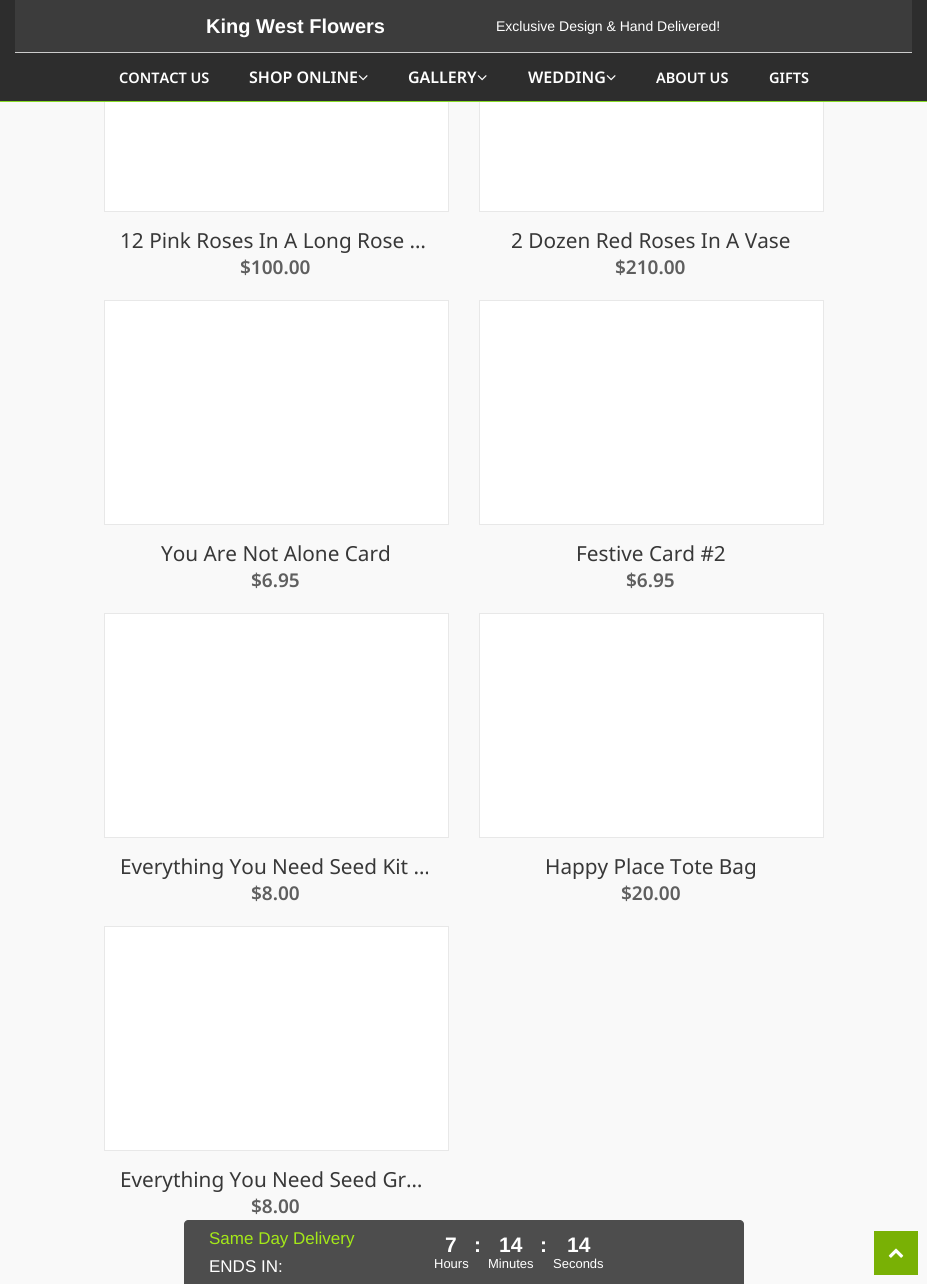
#include <cairo.h>
#include <math.h>
#include <stddef.h>


static void set_color(cairo_t *cr, unsigned color) {
    cairo_set_source_rgb(cr, (color >> 16) / 255.0, (color >> 8 & 255) / 255.0, (color & 255) / 255.0);
}

static void draw_text(cairo_t *cr, double x, double y, const char *s, const char *family, double size, int italic, int bold, unsigned color) {
    cairo_select_font_face(cr, family, italic ? CAIRO_FONT_SLANT_ITALIC : CAIRO_FONT_SLANT_NORMAL,
        bold ? CAIRO_FONT_WEIGHT_BOLD : CAIRO_FONT_WEIGHT_NORMAL);
    cairo_set_font_size(cr, size);
    set_color(cr, color);
    cairo_move_to(cr, x, y);
    cairo_show_text(cr, s);
}

static void fill_rect(cairo_t *cr, double x, double y, double w, double h, unsigned color) {
    set_color(cr, color);
    cairo_rectangle(cr, x, y, w, h);
    cairo_fill(cr);
}

static void draw_image(cairo_t *cr, const char *path, double x, double y, double w, double h) {
    cairo_surface_t *image = cairo_image_surface_create_from_png(path);
    cairo_save(cr);
    cairo_set_source_surface(cr, image, x, y);
    cairo_rectangle(cr, x, y, w, h);
    cairo_fill(cr);
    cairo_restore(cr);
    cairo_surface_destroy(image);
}

int main(void) {
    cairo_surface_t *surface = cairo_image_surface_create(CAIRO_FORMAT_RGB24, 927, 1284);
    cairo_t *cr = cairo_create(surface);
    cairo_font_options_t *options = cairo_font_options_create();
    cairo_font_options_set_hint_metrics(options, CAIRO_HINT_METRICS_OFF);
    cairo_font_options_set_hint_style(options, CAIRO_HINT_STYLE_NONE);
    cairo_set_font_options(cr, options);
    cairo_set_miter_limit(cr, 4);
    set_color(cr, 0xF9F9F9);
    cairo_paint(cr);
    fill_rect(cr, 105, 102, 343, 109, 0xFFFFFF);
    cairo_rectangle(cr, 104.5, -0.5, 344, 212);
    set_color(cr, 0xE8E8E8);
    cairo_set_line_width(cr, 1);
    cairo_stroke(cr);
    fill_rect(cr, 480, 102, 343, 109, 0xFFFFFF);
    cairo_rectangle(cr, 479.5, -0.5, 344, 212);
    set_color(cr, 0xE8E8E8);
    cairo_stroke(cr);
    fill_rect(cr, 0, 0, 927, 101, 0x2D2D2D);
    fill_rect(cr, 0, 101, 927, 1, 0x87DA27);
    fill_rect(cr, 15, 0, 897, 52, 0x3C3C3C);
    fill_rect(cr, 15, 52, 897, 1, 0xCCCCCC);
    draw_text(cr, 206, 33, "King West Flowers", "Liberation Sans", 20, 0, 1, 0xFFFFFF);
    draw_text(cr, 496, 31, "Exclusive Design & Hand Delivered!", "Liberation Sans", 14, 0, 0, 0xFFFFFF);
    draw_text(cr, 119, 83, "CONTACT US", "Noto Sans SemiBold", 14.5, 0, 0, 0xFFFFFF);
    draw_text(cr, 249, 83, "SHOP ONLINE", "Noto Sans SemiBold", 16, 0, 0, 0xFFFFFF);
    draw_image(cr, "assets/img1.png", 358, 75, 10, 6);
    draw_text(cr, 408, 83, "GALLERY", "Noto Sans SemiBold", 16, 0, 0, 0xFFFFFF);
    draw_image(cr, "assets/img1.png", 477, 75, 10, 6);
    draw_text(cr, 528, 83, "WEDDING", "Noto Sans SemiBold", 16, 0, 0, 0xFFFFFF);
    draw_image(cr, "assets/img1.png", 606, 75, 10, 6);
    draw_text(cr, 656, 83, "ABOUT US", "Noto Sans SemiBold", 14.5, 0, 0, 0xFFFFFF);
    draw_text(cr, 769, 83, "GIFTS", "Noto Sans SemiBold", 14.5, 0, 0, 0xFFFFFF);
    draw_text(cr, 120, 248, "12 Pink Roses In A Long Rose …", "Noto Sans", 20.75, 0, 0, 0x383838);
    draw_text(cr, 240, 274, "$100.00", "Noto Sans SemiBold", 19, 0, 0, 0x5F5F5F);
    draw_text(cr, 511, 248, "2 Dozen Red Roses In A Vase", "Noto Sans", 20.75, 0, 0, 0x383838);
    draw_text(cr, 615, 274, "$210.00", "Noto Sans SemiBold", 19, 0, 0, 0x5F5F5F);
    set_color(cr, 0xFFFFFF);
    cairo_rectangle(cr, 104.5, 300.5, 344, 224);
    cairo_fill_preserve(cr);
    set_color(cr, 0xE8E8E8);
    cairo_stroke(cr);
    draw_text(cr, 161, 561, "You Are Not Alone Card", "Noto Sans", 20.75, 0, 0, 0x383838);
    draw_text(cr, 251, 587, "$6.95", "Noto Sans SemiBold", 19, 0, 0, 0x5F5F5F);
    set_color(cr, 0xFFFFFF);
    cairo_rectangle(cr, 479.5, 300.5, 344, 224);
    cairo_fill_preserve(cr);
    set_color(cr, 0xE8E8E8);
    cairo_stroke(cr);
    draw_text(cr, 576, 561, "Festive Card #2", "Noto Sans", 20.75, 0, 0, 0x383838);
    draw_text(cr, 626, 587, "$6.95", "Noto Sans SemiBold", 19, 0, 0, 0x5F5F5F);
    set_color(cr, 0xFFFFFF);
    cairo_rectangle(cr, 104.5, 613.5, 344, 224);
    cairo_fill_preserve(cr);
    set_color(cr, 0xE8E8E8);
    cairo_stroke(cr);
    draw_text(cr, 120, 874, "Everything You Need Seed Kit …", "Noto Sans", 20.75, 0, 0, 0x383838);
    draw_text(cr, 251, 900, "$8.00", "Noto Sans SemiBold", 19, 0, 0, 0x5F5F5F);
    set_color(cr, 0xFFFFFF);
    cairo_rectangle(cr, 479.5, 613.5, 344, 224);
    cairo_fill_preserve(cr);
    set_color(cr, 0xE8E8E8);
    cairo_stroke(cr);
    draw_text(cr, 545, 874, "Happy Place Tote Bag", "Noto Sans", 20.75, 0, 0, 0x383838);
    draw_text(cr, 621, 900, "$20.00", "Noto Sans SemiBold", 19, 0, 0, 0x5F5F5F);
    set_color(cr, 0xFFFFFF);
    cairo_rectangle(cr, 104.5, 926.5, 344, 224);
    cairo_fill_preserve(cr);
    set_color(cr, 0xE8E8E8);
    cairo_stroke(cr);
    draw_text(cr, 120, 1187, "Everything You Need Seed Gr…", "Noto Sans", 20.75, 0, 0, 0x383838);
    draw_text(cr, 251, 1213, "$8.00", "Noto Sans SemiBold", 19, 0, 0, 0x5F5F5F);
    set_color(cr, 0x4D4D4D);
    cairo_new_path(cr);
    cairo_move_to(cr, 188, 1220);
    cairo_line_to(cr, 740, 1220);
    cairo_curve_to(cr, 742, 1220, 744, 1222, 744, 1224);
    cairo_line_to(cr, 744, 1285);
    cairo_line_to(cr, 184, 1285);
    cairo_line_to(cr, 184, 1224);
    cairo_curve_to(cr, 184, 1222, 186, 1220, 188, 1220);
    cairo_close_path(cr);
    cairo_fill(cr);
    draw_text(cr, 209, 1244, "Same Day Delivery", "Liberation Sans", 17, 0, 0, 0xA4E818);
    draw_text(cr, 209, 1272, "ENDS IN:", "Liberation Sans", 17, 0, 0, 0xFFFFFF);
    draw_text(cr, 445, 1252, "7", "Liberation Sans", 21, 0, 1, 0xFFFFFF);
    draw_text(cr, 434, 1268, "Hours", "Liberation Sans", 13, 0, 0, 0xFFFFFF);
    draw_text(cr, 474, 1252, ":", "Liberation Sans", 21, 0, 1, 0xFFFFFF);
    draw_text(cr, 499, 1252, "14", "Liberation Sans", 21, 0, 1, 0xFFFFFF);
    draw_text(cr, 488, 1268, "Minutes", "Liberation Sans", 13, 0, 0, 0xFFFFFF);
    draw_text(cr, 540, 1252, ":", "Liberation Sans", 21, 0, 1, 0xFFFFFF);
    draw_text(cr, 567, 1252, "14", "Liberation Sans", 21, 0, 1, 0xFFFFFF);
    draw_text(cr, 553, 1268, "Seconds", "Liberation Sans", 13, 0, 0, 0xFFFFFF);
    fill_rect(cr, 874, 1231, 44, 44, 0x79B105);
    draw_image(cr, "assets/img2.png", 888, 1248, 16, 10);
    cairo_surface_write_to_png(surface, "output.png");
    cairo_font_options_destroy(options);
    cairo_destroy(cr);
    cairo_surface_destroy(surface);
    return 0;
}
